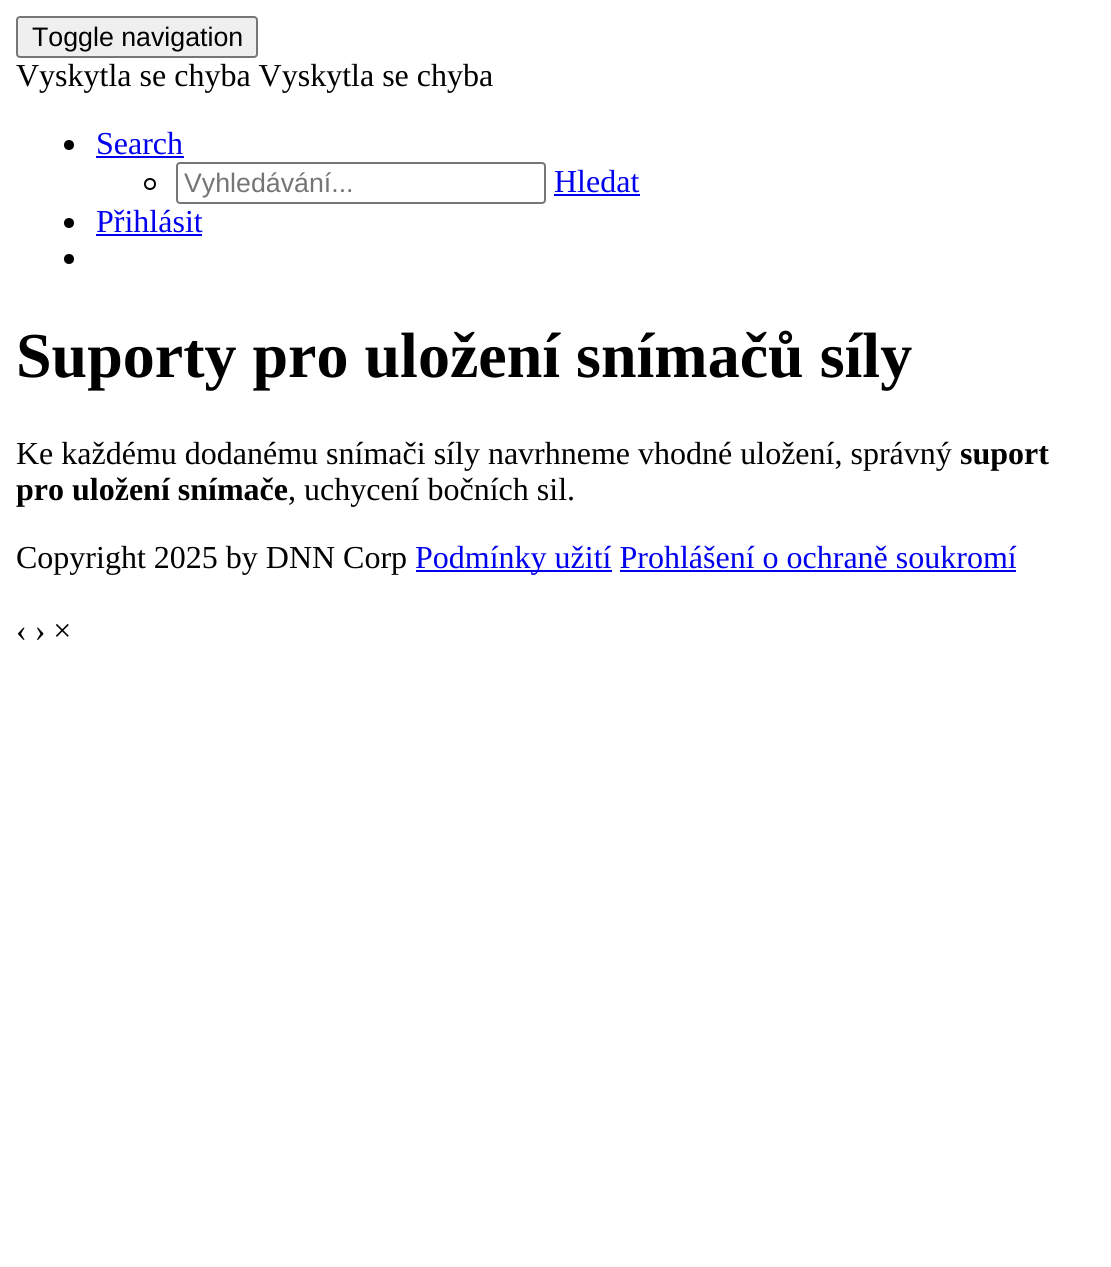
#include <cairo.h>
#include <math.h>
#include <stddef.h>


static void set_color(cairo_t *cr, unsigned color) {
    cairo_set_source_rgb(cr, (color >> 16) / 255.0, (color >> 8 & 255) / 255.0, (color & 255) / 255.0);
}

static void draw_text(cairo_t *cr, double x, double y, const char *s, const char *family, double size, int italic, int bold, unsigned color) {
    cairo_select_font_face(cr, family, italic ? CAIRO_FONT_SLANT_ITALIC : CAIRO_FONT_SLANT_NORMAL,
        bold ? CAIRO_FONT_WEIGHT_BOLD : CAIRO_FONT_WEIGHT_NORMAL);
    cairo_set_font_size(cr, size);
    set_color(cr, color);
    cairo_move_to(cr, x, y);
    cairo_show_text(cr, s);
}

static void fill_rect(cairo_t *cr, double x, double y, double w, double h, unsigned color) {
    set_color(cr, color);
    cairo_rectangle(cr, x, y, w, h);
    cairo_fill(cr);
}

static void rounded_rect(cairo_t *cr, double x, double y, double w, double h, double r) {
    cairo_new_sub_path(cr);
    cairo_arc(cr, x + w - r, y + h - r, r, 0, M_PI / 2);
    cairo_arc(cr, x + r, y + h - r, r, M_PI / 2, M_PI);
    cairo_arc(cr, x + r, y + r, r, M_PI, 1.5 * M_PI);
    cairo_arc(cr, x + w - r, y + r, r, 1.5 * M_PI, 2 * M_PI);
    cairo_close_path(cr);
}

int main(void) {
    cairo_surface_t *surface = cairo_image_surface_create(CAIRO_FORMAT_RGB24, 1111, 1267);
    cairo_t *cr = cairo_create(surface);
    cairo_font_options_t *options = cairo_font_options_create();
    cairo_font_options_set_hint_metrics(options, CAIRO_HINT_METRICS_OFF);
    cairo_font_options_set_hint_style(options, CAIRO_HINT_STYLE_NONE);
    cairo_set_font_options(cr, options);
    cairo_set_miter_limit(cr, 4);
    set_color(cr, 0xFFFFFF);
    cairo_paint(cr);
    set_color(cr, 0xEFEFEF);
    rounded_rect(cr, 17, 17, 240, 40, 3);
    cairo_fill_preserve(cr);
    set_color(cr, 0x767676);
    cairo_stroke(cr);
    draw_text(cr, 32, 46, "Toggle navigation", "Liberation Sans", 26.75, 0, 0, 0x000000);
    draw_text(cr, 16, 86, "Vyskytla se chyba Vyskytla se chyba", "Liberation Serif", 32, 0, 0, 0x000000);
    cairo_new_path(cr);
    cairo_arc(cr, 69, 145, 5, 0, 2 * M_PI);
    cairo_fill(cr);
    draw_text(cr, 96, 154, "Search", "Liberation Serif", 32, 0, 0, 0x0000EE);
    fill_rect(cr, 96, 156, 88, 2, 0x0000EE);
    cairo_new_path(cr);
    cairo_arc(cr, 150, 184, 5, 0, 2 * M_PI);
    set_color(cr, 0x000000);
    cairo_stroke(cr);
    rounded_rect(cr, 177, 163, 368, 40, 3);
    set_color(cr, 0x767676);
    cairo_stroke(cr);
    draw_text(cr, 184, 192, "Vyhledávání...", "Liberation Sans", 26.75, 0, 0, 0x757575);
    draw_text(cr, 554, 192, "Hledat", "Liberation Serif", 32, 0, 0, 0x0000EE);
    fill_rect(cr, 554, 194, 86, 2, 0x0000EE);
    set_color(cr, 0x000000);
    cairo_new_path(cr);
    cairo_arc(cr, 69, 223, 5, 0, 2 * M_PI);
    cairo_fill(cr);
    draw_text(cr, 96, 232, "Přihlásit", "Liberation Serif", 32, 0, 0, 0x0000EE);
    fill_rect(cr, 96, 234, 106, 2, 0x0000EE);
    set_color(cr, 0x000000);
    cairo_new_path(cr);
    cairo_arc(cr, 69, 259, 5, 0, 2 * M_PI);
    cairo_fill(cr);
    draw_text(cr, 16, 377, "Suporty pro uložení snímačů síly", "Liberation Serif", 64, 0, 1, 0x000000);
    draw_text(cr, 16, 464, "Ke každému dodanému snímači síly navrhneme vhodné uložení, správný", "Liberation Serif", 32, 0, 0, 0x000000);
    draw_text(cr, 960, 464, "suport", "Liberation Serif", 32, 0, 1, 0x000000);
    draw_text(cr, 16, 500, "pro uložení snímače", "Liberation Serif", 32, 0, 1, 0x000000);
    draw_text(cr, 288, 500, ", uchycení bočních sil.", "Liberation Serif", 32, 0, 0, 0x000000);
    draw_text(cr, 16, 568, "Copyright 2025 by DNN Corp", "Liberation Serif", 32, 0, 0, 0x000000);
    fill_rect(cr, 416, 570, 196, 2, 0x0000EE);
    draw_text(cr, 415, 568, "Podmínky užití Prohlášení o ochraně soukromí", "Liberation Serif", 32, 0, 0, 0x0000EE);
    fill_rect(cr, 620, 570, 396, 2, 0x0000EE);
    draw_text(cr, 16, 641, "‹ › ×", "Liberation Serif", 32, 0, 0, 0x000000);
    cairo_surface_write_to_png(surface, "output.png");
    cairo_font_options_destroy(options);
    cairo_destroy(cr);
    cairo_surface_destroy(surface);
    return 0;
}
